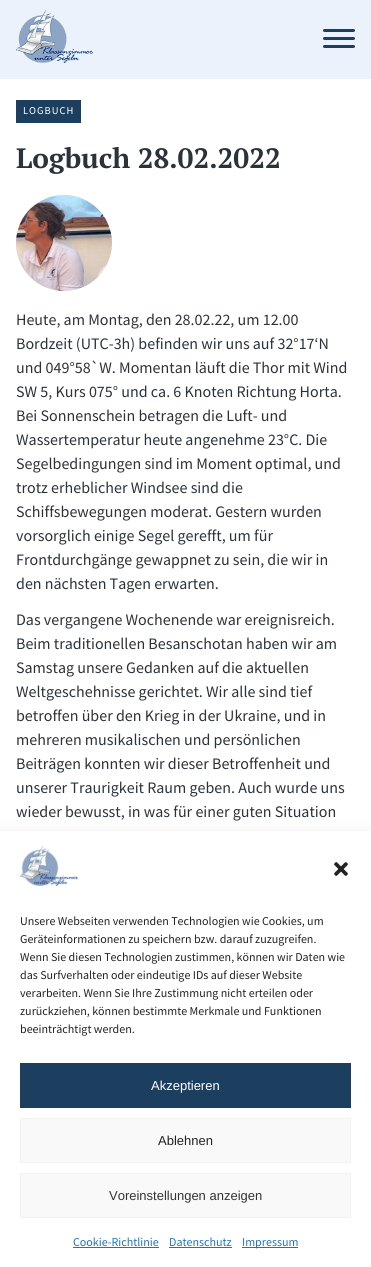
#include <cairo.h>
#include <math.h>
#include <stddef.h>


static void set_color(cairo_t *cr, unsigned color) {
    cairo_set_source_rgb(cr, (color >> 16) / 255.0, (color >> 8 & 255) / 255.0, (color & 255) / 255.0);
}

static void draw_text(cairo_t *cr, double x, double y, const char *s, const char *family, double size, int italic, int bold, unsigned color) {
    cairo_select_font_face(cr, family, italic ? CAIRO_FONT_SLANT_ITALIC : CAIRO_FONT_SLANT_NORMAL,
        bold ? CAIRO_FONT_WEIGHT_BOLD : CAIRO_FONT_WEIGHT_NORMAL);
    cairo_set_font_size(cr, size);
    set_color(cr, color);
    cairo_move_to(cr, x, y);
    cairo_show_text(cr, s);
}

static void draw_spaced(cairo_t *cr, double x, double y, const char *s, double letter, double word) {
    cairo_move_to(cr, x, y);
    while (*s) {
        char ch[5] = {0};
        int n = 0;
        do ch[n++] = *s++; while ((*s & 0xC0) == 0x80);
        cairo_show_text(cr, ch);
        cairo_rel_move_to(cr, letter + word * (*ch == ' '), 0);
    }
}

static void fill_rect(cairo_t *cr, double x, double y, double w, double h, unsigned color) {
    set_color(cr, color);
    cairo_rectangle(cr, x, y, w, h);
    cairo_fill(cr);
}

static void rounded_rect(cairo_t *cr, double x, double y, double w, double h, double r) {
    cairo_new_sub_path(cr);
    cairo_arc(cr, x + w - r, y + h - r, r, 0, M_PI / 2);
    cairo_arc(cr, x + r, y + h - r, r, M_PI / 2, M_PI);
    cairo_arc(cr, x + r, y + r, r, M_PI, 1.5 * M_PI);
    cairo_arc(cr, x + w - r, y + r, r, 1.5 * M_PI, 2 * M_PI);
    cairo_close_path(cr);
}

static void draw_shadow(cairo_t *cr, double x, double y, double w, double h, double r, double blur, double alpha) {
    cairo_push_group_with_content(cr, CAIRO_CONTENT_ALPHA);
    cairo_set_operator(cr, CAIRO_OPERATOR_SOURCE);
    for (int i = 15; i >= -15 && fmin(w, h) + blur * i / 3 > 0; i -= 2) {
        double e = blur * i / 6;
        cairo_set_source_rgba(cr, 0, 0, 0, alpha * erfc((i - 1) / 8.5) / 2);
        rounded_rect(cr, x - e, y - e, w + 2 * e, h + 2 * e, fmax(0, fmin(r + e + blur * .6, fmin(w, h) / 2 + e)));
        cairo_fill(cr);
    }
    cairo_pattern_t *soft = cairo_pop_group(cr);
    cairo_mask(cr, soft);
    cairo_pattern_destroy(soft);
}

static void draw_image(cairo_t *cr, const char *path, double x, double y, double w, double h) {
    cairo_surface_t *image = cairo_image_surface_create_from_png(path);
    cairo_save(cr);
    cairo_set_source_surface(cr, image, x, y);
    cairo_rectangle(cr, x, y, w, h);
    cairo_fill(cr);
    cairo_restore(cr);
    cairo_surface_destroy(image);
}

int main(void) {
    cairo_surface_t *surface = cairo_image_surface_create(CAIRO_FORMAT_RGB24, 371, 1267);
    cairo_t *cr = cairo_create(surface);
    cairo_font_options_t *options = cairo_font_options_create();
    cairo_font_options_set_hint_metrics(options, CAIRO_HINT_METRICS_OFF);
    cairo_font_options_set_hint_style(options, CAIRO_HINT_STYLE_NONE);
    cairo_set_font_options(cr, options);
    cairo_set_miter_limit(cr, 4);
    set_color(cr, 0xFFFFFF);
    cairo_paint(cr);
    fill_rect(cr, 0, 0, 371, 79, 0xEBF2FB);
    draw_image(cr, "assets/img1.png", 16, 10, 77, 53);
    set_color(cr, 0x1D3F5F);
    rounded_rect(cr, 323, 29, 32, 3, 1.5);
    cairo_fill(cr);
    rounded_rect(cr, 323, 37, 32, 3, 1.5);
    cairo_fill(cr);
    rounded_rect(cr, 323, 45, 32, 3, 1.5);
    cairo_fill(cr);
    fill_rect(cr, 16, 100, 65, 23, 0x1D3F5F);
    cairo_select_font_face(cr, "Source Sans Pro", CAIRO_FONT_SLANT_NORMAL, CAIRO_FONT_WEIGHT_NORMAL);
    cairo_set_font_size(cr, 10.5);
    set_color(cr, 0xFFFFFF);
    draw_spaced(cr, 23, 114, "LOGBUCH", 1, 0);
    draw_text(cr, 16, 168, "Logbuch 28.02.2022", "PT Serif", 28, 0, 1, 0x2B333A);
    set_color(cr, 0xEEEEEE);
    cairo_new_path(cr);
    cairo_arc(cr, 64, 243, 48, 0, 2 * M_PI);
    cairo_fill(cr);
    draw_image(cr, "assets/img2.png", 16, 195, 96, 96);
    draw_text(cr, 16, 325, "Heute, am Montag, den 28.02.22, um 12.00", "Source Sans Pro", 16, 0, 0, 0x2B333A);
    draw_text(cr, 16, 349, "Bordzeit (UTC-3h) befinden wir uns auf 32°17‘N", "Source Sans Pro", 16, 0, 0, 0x2B333A);
    draw_text(cr, 16, 373, "und 049°58`W. Momentan läuft die Thor mit Wind", "Source Sans Pro", 16, 0, 0, 0x2B333A);
    draw_text(cr, 16, 397, "SW 5, Kurs 075° und ca. 6 Knoten Richtung Horta.", "Source Sans Pro", 16, 0, 0, 0x2B333A);
    draw_text(cr, 16, 421, "Bei Sonnenschein betragen die Luft- und", "Source Sans Pro", 16, 0, 0, 0x2B333A);
    draw_text(cr, 16, 445, "Wassertemperatur heute angenehme 23°C. Die", "Source Sans Pro", 16, 0, 0, 0x2B333A);
    draw_text(cr, 16, 469, "Segelbedingungen sind im Moment optimal, und", "Source Sans Pro", 16, 0, 0, 0x2B333A);
    draw_text(cr, 16, 493, "trotz erheblicher Windsee sind die", "Source Sans Pro", 16, 0, 0, 0x2B333A);
    draw_text(cr, 16, 517, "Schiffsbewegungen moderat. Gestern wurden", "Source Sans Pro", 16, 0, 0, 0x2B333A);
    draw_text(cr, 16, 541, "vorsorglich einige Segel gerefft, um für", "Source Sans Pro", 16, 0, 0, 0x2B333A);
    draw_text(cr, 16, 565, "Frontdurchgänge gewappnet zu sein, die wir in", "Source Sans Pro", 16, 0, 0, 0x2B333A);
    draw_text(cr, 16, 589, "den nächsten Tagen erwarten.", "Source Sans Pro", 16, 0, 0, 0x2B333A);
    draw_text(cr, 16, 625, "Das vergangene Wochenende war ereignisreich.", "Source Sans Pro", 16, 0, 0, 0x2B333A);
    draw_text(cr, 16, 649, "Beim traditionellen Besanschotan haben wir am", "Source Sans Pro", 16, 0, 0, 0x2B333A);
    draw_text(cr, 16, 673, "Samstag unsere Gedanken auf die aktuellen", "Source Sans Pro", 16, 0, 0, 0x2B333A);
    draw_text(cr, 16, 697, "Weltgeschehnisse gerichtet. Wir alle sind tief", "Source Sans Pro", 16, 0, 0, 0x2B333A);
    draw_text(cr, 16, 721, "betroffen über den Krieg in der Ukraine, und in", "Source Sans Pro", 16, 0, 0, 0x2B333A);
    draw_text(cr, 16, 745, "mehreren musikalischen und persönlichen", "Source Sans Pro", 16, 0, 0, 0x2B333A);
    draw_text(cr, 16, 769, "Beiträgen konnten wir dieser Betroffenheit und", "Source Sans Pro", 16, 0, 0, 0x2B333A);
    draw_text(cr, 16, 793, "unserer Traurigkeit Raum geben. Auch wurde uns", "Source Sans Pro", 16, 0, 0, 0x2B333A);
    draw_text(cr, 16, 817, "wieder bewusst, in was für einer guten Situation", "Source Sans Pro", 16, 0, 0, 0x2B333A);
    set_color(cr, 0x000000);
    draw_shadow(cr, 0, 841, 371, 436, 0, 10, 0.19);
    fill_rect(cr, 0, 831, 371, 436, 0xFFFFFF);
    draw_image(cr, "assets/img3.png", 20, 846, 58, 40);
    draw_image(cr, "assets/img4.png", 334, 862, 14, 14);
    draw_text(cr, 20, 925, "Unsere Webseiten verwenden Technologien wie Cookies, um", "Source Sans Pro", 12, 0, 0, 0x222222);
    draw_text(cr, 20, 943, "Geräteinformationen zu speichern bzw. darauf zuzugreifen.", "Source Sans Pro", 12, 0, 0, 0x222222);
    draw_text(cr, 20, 961, "Wenn Sie diesen Technologien zustimmen, können wir Daten wie", "Source Sans Pro", 12, 0, 0, 0x222222);
    draw_text(cr, 20, 979, "das Surfverhalten oder eindeutige IDs auf dieser Website", "Source Sans Pro", 12, 0, 0, 0x222222);
    draw_text(cr, 20, 997, "verarbeiten. Wenn Sie Ihre Zustimmung nicht erteilen oder", "Source Sans Pro", 12, 0, 0, 0x222222);
    draw_text(cr, 20, 1015, "zurückziehen, können bestimmte Merkmale und Funktionen", "Source Sans Pro", 12, 0, 0, 0x222222);
    draw_text(cr, 20, 1033, "beeinträchtigt werden.", "Source Sans Pro", 12, 0, 0, 0x222222);
    fill_rect(cr, 20, 1063, 331, 45, 0x1D3F5F);
    draw_text(cr, 151, 1090, "Akzeptieren", "Liberation Sans", 13, 0, 0, 0xFFFFFF);
    set_color(cr, 0xF9F9F9);
    cairo_rectangle(cr, 20.5, 1118.5, 330, 44);
    cairo_fill_preserve(cr);
    set_color(cr, 0xF2F2F2);
    cairo_set_line_width(cr, 1);
    cairo_stroke(cr);
    draw_text(cr, 158, 1145, "Ablehnen", "Liberation Sans", 13, 0, 0, 0x222222);
    set_color(cr, 0xF9F9F9);
    cairo_rectangle(cr, 20.5, 1173.5, 330, 44);
    cairo_fill_preserve(cr);
    set_color(cr, 0xF2F2F2);
    cairo_stroke(cr);
    draw_text(cr, 109, 1200, "Voreinstellungen anzeigen", "Liberation Sans", 13, 0, 0, 0x333333);
    draw_text(cr, 73, 1246, "Cookie-Richtlinie", "Source Sans Pro", 12, 0, 0, 0x1E73BE);
    fill_rect(cr, 73, 1247, 86, 1, 0x1E73BE);
    draw_text(cr, 169, 1246, "Datenschutz", "Source Sans Pro", 12, 0, 0, 0x1E73BE);
    fill_rect(cr, 169, 1247, 63, 1, 0x1E73BE);
    fill_rect(cr, 242, 1247, 56, 1, 0x1E73BE);
    draw_text(cr, 242, 1246, "Impressum", "Source Sans Pro", 12, 0, 0, 0x1E73BE);
    cairo_surface_write_to_png(surface, "output.png");
    cairo_font_options_destroy(options);
    cairo_destroy(cr);
    cairo_surface_destroy(surface);
    return 0;
}
